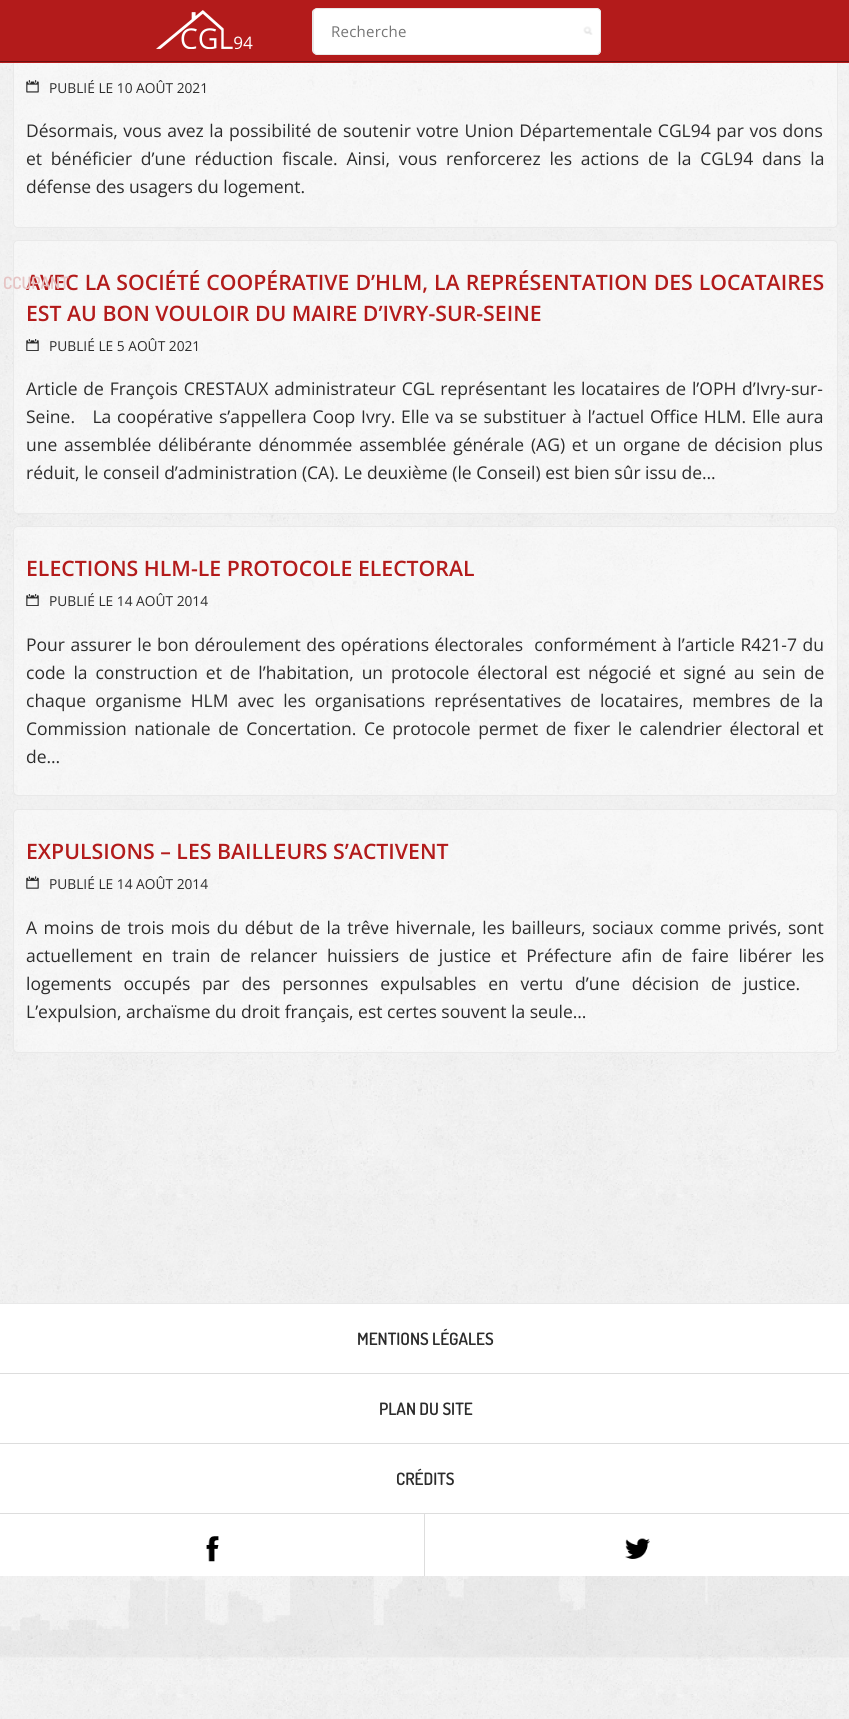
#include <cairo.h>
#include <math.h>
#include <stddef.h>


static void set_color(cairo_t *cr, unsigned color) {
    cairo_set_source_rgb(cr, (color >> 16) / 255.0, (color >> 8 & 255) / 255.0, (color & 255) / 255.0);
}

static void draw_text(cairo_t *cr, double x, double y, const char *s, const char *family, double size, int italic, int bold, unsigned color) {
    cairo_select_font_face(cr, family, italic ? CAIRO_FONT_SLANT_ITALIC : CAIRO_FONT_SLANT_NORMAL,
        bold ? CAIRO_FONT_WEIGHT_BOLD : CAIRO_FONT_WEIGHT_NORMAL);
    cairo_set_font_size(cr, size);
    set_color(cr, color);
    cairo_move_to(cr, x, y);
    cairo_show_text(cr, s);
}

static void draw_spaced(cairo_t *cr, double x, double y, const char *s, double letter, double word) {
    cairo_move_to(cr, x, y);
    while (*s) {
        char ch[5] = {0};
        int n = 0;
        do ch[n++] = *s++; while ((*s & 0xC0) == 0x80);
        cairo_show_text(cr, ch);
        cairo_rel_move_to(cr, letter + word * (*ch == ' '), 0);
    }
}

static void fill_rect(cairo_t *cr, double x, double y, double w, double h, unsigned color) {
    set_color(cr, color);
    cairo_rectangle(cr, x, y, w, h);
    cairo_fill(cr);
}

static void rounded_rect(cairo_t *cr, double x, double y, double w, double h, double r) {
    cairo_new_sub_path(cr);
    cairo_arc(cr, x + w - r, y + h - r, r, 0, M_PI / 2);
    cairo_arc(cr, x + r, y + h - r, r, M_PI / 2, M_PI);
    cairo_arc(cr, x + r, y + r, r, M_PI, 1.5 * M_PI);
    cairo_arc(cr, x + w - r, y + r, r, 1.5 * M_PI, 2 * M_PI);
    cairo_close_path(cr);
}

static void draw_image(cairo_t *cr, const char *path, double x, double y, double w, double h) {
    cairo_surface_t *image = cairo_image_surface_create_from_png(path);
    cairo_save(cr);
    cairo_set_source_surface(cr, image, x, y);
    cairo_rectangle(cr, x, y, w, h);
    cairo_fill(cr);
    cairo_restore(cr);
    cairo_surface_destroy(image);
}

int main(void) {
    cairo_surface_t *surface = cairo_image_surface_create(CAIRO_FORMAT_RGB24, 849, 1719);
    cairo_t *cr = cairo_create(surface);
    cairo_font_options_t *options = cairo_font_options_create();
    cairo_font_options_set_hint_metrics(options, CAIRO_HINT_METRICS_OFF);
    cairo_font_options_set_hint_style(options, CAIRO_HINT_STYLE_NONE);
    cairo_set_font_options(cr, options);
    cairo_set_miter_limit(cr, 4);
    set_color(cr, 0xEEEEEE);
    cairo_paint(cr);
    draw_image(cr, "assets/img1.png", 0, 63, 849, 1656);
    cairo_set_source_rgba(cr, 1, 1, 1, 0.4);
    rounded_rect(cr, 13.5, 13.5, 824, 214, 4.5);
    cairo_fill_preserve(cr);
    set_color(cr, 0xE9E9E9);
    cairo_set_line_width(cr, 1);
    cairo_stroke(cr);
    fill_rect(cr, 0, 0, 849, 63, 0xB31B1B);
    fill_rect(cr, 0, 61, 849, 1, 0x701111);
    draw_image(cr, "assets/img2.png", 156, 10, 97, 39);
    set_color(cr, 0xFFFFFF);
    cairo_new_path(cr);
    cairo_move_to(cr, 318, 8);
    cairo_line_to(cr, 573, 8);
    cairo_line_to(cr, 573, 55);
    cairo_line_to(cr, 318, 55);
    cairo_curve_to(cr, 315, 55, 313, 53, 313, 50);
    cairo_line_to(cr, 313, 13);
    cairo_curve_to(cr, 313, 10, 315, 8, 318, 8);
    cairo_close_path(cr);
    cairo_fill(cr);
    set_color(cr, 0xE9E9E9);
    cairo_set_fill_rule(cr, CAIRO_FILL_RULE_EVEN_ODD);
    cairo_new_path(cr);
    cairo_move_to(cr, 318, 8);
    cairo_line_to(cr, 572, 8);
    cairo_line_to(cr, 572, 55);
    cairo_line_to(cr, 318, 55);
    cairo_curve_to(cr, 315, 55, 312, 53, 312, 50);
    cairo_line_to(cr, 312, 12);
    cairo_curve_to(cr, 312, 10, 315, 8, 318, 8);
    cairo_close_path(cr);
    cairo_move_to(cr, 318, 9);
    cairo_line_to(cr, 572, 9);
    cairo_line_to(cr, 572, 54);
    cairo_line_to(cr, 318, 54);
    cairo_curve_to(cr, 315, 54, 314, 52, 314, 50);
    cairo_line_to(cr, 314, 12);
    cairo_curve_to(cr, 314, 10, 315, 9, 318, 9);
    cairo_close_path(cr);
    cairo_fill(cr);
    cairo_select_font_face(cr, "Open Sans", CAIRO_FONT_SLANT_NORMAL, CAIRO_FONT_WEIGHT_NORMAL);
    cairo_set_font_size(cr, 15);
    set_color(cr, 0x757575);
    draw_spaced(cr, 331, 37, "Recherche", 0.25, 0);
    set_color(cr, 0xFFFFFF);
    cairo_new_path(cr);
    cairo_move_to(cr, 573, 8);
    cairo_line_to(cr, 596, 8);
    cairo_curve_to(cr, 599, 8, 601, 10, 601, 13);
    cairo_line_to(cr, 601, 50);
    cairo_curve_to(cr, 601, 53, 599, 55, 596, 55);
    cairo_line_to(cr, 573, 55);
    cairo_close_path(cr);
    cairo_fill(cr);
    draw_image(cr, "assets/img3.png", 583, 26, 10, 9);
    set_color(cr, 0xE9E9E9);
    cairo_new_path(cr);
    cairo_move_to(cr, 572, 8);
    cairo_line_to(cr, 596, 8);
    cairo_curve_to(cr, 599, 8, 601, 10, 601, 12);
    cairo_line_to(cr, 601, 50);
    cairo_curve_to(cr, 601, 53, 599, 55, 596, 55);
    cairo_line_to(cr, 572, 55);
    cairo_close_path(cr);
    cairo_move_to(cr, 572, 9);
    cairo_line_to(cr, 596, 9);
    cairo_curve_to(cr, 598, 9, 600, 10, 600, 12);
    cairo_line_to(cr, 600, 50);
    cairo_curve_to(cr, 600, 52, 598, 54, 596, 54);
    cairo_line_to(cr, 572, 54);
    cairo_close_path(cr);
    cairo_fill(cr);
    cairo_set_source_rgba(cr, 1, 1, 1, 0.4);
    rounded_rect(cr, 13.5, 240.5, 824, 273, 4.5);
    cairo_fill_preserve(cr);
    set_color(cr, 0xE9E9E9);
    cairo_stroke(cr);
    cairo_select_font_face(cr, "Open Sans SemiBold", CAIRO_FONT_SLANT_NORMAL, CAIRO_FONT_WEIGHT_NORMAL);
    cairo_set_font_size(cr, 21.25);
    set_color(cr, 0xB31B1B);
    draw_spaced(cr, 26, 290, "AVEC LA SOCIÉTÉ COOPÉRATIVE D’HLM, LA REPRÉSENTATION DES LOCATAIRES", 0, 0.5);
    draw_text(cr, 3, 289, "CCUPANT", "Dosis SemiBold", 17, 0, 0, 0xE6C4C4);
    draw_image(cr, "assets/img4.png", 26, 80, 13, 13);
    draw_text(cr, 49, 93, "PUBLIÉ LE 10 AOÛT 2021", "Open Sans", 13.75, 0, 0, 0x2C2C2C);
    cairo_set_font_size(cr, 17.5);
    draw_spaced(cr, 26, 137, "Désormais, vous avez la possibilité de soutenir votre Union Départementale CGL94 par vos dons", 0, 1);
    draw_spaced(cr, 26, 165, "et bénéficier d’une réduction fiscale. Ainsi, vous renforcerez les actions de la CGL94 dans la", 0, 4.25);
    draw_text(cr, 26, 193, "défense des usagers du logement.", "Open Sans", 17.5, 0, 0, 0x2C2C2C);
    draw_text(cr, 26, 321, "EST AU BON VOULOIR DU MAIRE D’IVRY-SUR-SEINE", "Open Sans SemiBold", 21.25, 0, 0, 0xB31B1B);
    draw_image(cr, "assets/img5.png", 26, 339, 13, 12);
    draw_text(cr, 49, 351, "PUBLIÉ LE 5 AOÛT 2021", "Open Sans", 13.75, 0, 0, 0x2C2C2C);
    cairo_set_font_size(cr, 17.5);
    draw_spaced(cr, 26, 395, "Article de François CRESTAUX administrateur CGL représentant les locataires de l’OPH d’Ivry-sur-", 0, 1.25);
    draw_spaced(cr, 26, 423, "Seine.   La coopérative s’appellera Coop Ivry. Elle va se substituer à l’actuel Office HLM. Elle aura", 0, 1.25);
    draw_spaced(cr, 26, 451, "une assemblée délibérante dénommée assemblée générale (AG) et un organe de décision plus", 0, 2.25);
    draw_text(cr, 26, 479, "réduit, le conseil d’administration (CA). Le deuxième (le Conseil) est bien sûr issu de…", "Open Sans", 17.5, 0, 0, 0x2C2C2C);
    cairo_set_source_rgba(cr, 1, 1, 1, 0.4);
    rounded_rect(cr, 13.5, 526.5, 824, 269, 4.5);
    cairo_fill_preserve(cr);
    set_color(cr, 0xE9E9E9);
    cairo_stroke(cr);
    draw_text(cr, 26, 576, "ELECTIONS HLM-LE PROTOCOLE ELECTORAL", "Open Sans SemiBold", 21.25, 0, 0, 0xB31B1B);
    draw_image(cr, "assets/img6.png", 26, 594, 13, 12);
    draw_text(cr, 49, 606, "PUBLIÉ LE 14 AOÛT 2014", "Open Sans", 13.75, 0, 0, 0x2C2C2C);
    cairo_set_font_size(cr, 17.5);
    draw_spaced(cr, 26, 651, "Pour assurer le bon déroulement des opérations électorales  conformément à l’article R421-7 du", 0, 1);
    draw_spaced(cr, 26, 679, "code la construction et de l’habitation, un protocole électoral est négocié et signé au sein de", 0, 3.4);
    draw_spaced(cr, 26, 707, "chaque organisme HLM avec les organisations représentatives de locataires, membres de la", 0, 4.5);
    draw_spaced(cr, 26, 735, "Commission nationale de Concertation. Ce protocole permet de fixer le calendrier électoral et", 0, 3);
    draw_text(cr, 26, 763, "de…", "Open Sans", 17.5, 0, 0, 0x2C2C2C);
    cairo_set_source_rgba(cr, 1, 1, 1, 0.4);
    rounded_rect(cr, 13.5, 809.5, 824, 243, 4.5);
    cairo_fill_preserve(cr);
    set_color(cr, 0xE9E9E9);
    cairo_stroke(cr);
    draw_text(cr, 26, 859, "EXPULSIONS – LES BAILLEURS S’ACTIVENT", "Open Sans SemiBold", 21.25, 0, 0, 0xB31B1B);
    draw_image(cr, "assets/img7.png", 26, 876, 13, 13);
    draw_text(cr, 49, 889, "PUBLIÉ LE 14 AOÛT 2014", "Open Sans", 13.75, 0, 0, 0x2C2C2C);
    cairo_set_font_size(cr, 17.5);
    draw_spaced(cr, 26, 934, "A moins de trois mois du début de la trêve hivernale, les bailleurs, sociaux comme privés, sont", 0, 2);
    draw_spaced(cr, 26, 962, "actuellement en train de relancer huissiers de justice et Préfecture afin de faire libérer les", 0, 5);
    draw_spaced(cr, 26, 990, "logements occupés par des personnes expulsables en vertu d’une décision de justice.", 0, 7.25);
    draw_text(cr, 26, 1018, "L’expulsion, archaïsme du droit français, est certes souvent la seule…", "Open Sans", 17.5, 0, 0, 0x2C2C2C);
    fill_rect(cr, 0, 1304, 849, 272, 0xFFFFFF);
    fill_rect(cr, 0, 1303, 849, 1, 0xE9E9E9);
    fill_rect(cr, 0, 1373, 849, 1, 0xDDDDDD);
    draw_text(cr, 357, 1345, "MENTIONS LÉGALES", "Dosis SemiBold", 17, 0, 0, 0x2C2C2C);
    fill_rect(cr, 0, 1443, 849, 1, 0xDDDDDD);
    draw_text(cr, 379, 1415, "PLAN DU SITE", "Dosis SemiBold", 17, 0, 0, 0x2C2C2C);
    fill_rect(cr, 0, 1513, 849, 1, 0xDDDDDD);
    draw_text(cr, 396, 1485, "CRÉDITS", "Dosis SemiBold", 17, 0, 0, 0x2C2C2C);
    draw_image(cr, "assets/img8.png", 206, 1536, 13, 26);
    fill_rect(cr, 424, 1514, 1, 62, 0xDDDDDD);
    draw_image(cr, "assets/img9.png", 625, 1538, 25, 21);
    cairo_surface_write_to_png(surface, "output.png");
    cairo_font_options_destroy(options);
    cairo_destroy(cr);
    cairo_surface_destroy(surface);
    return 0;
}
